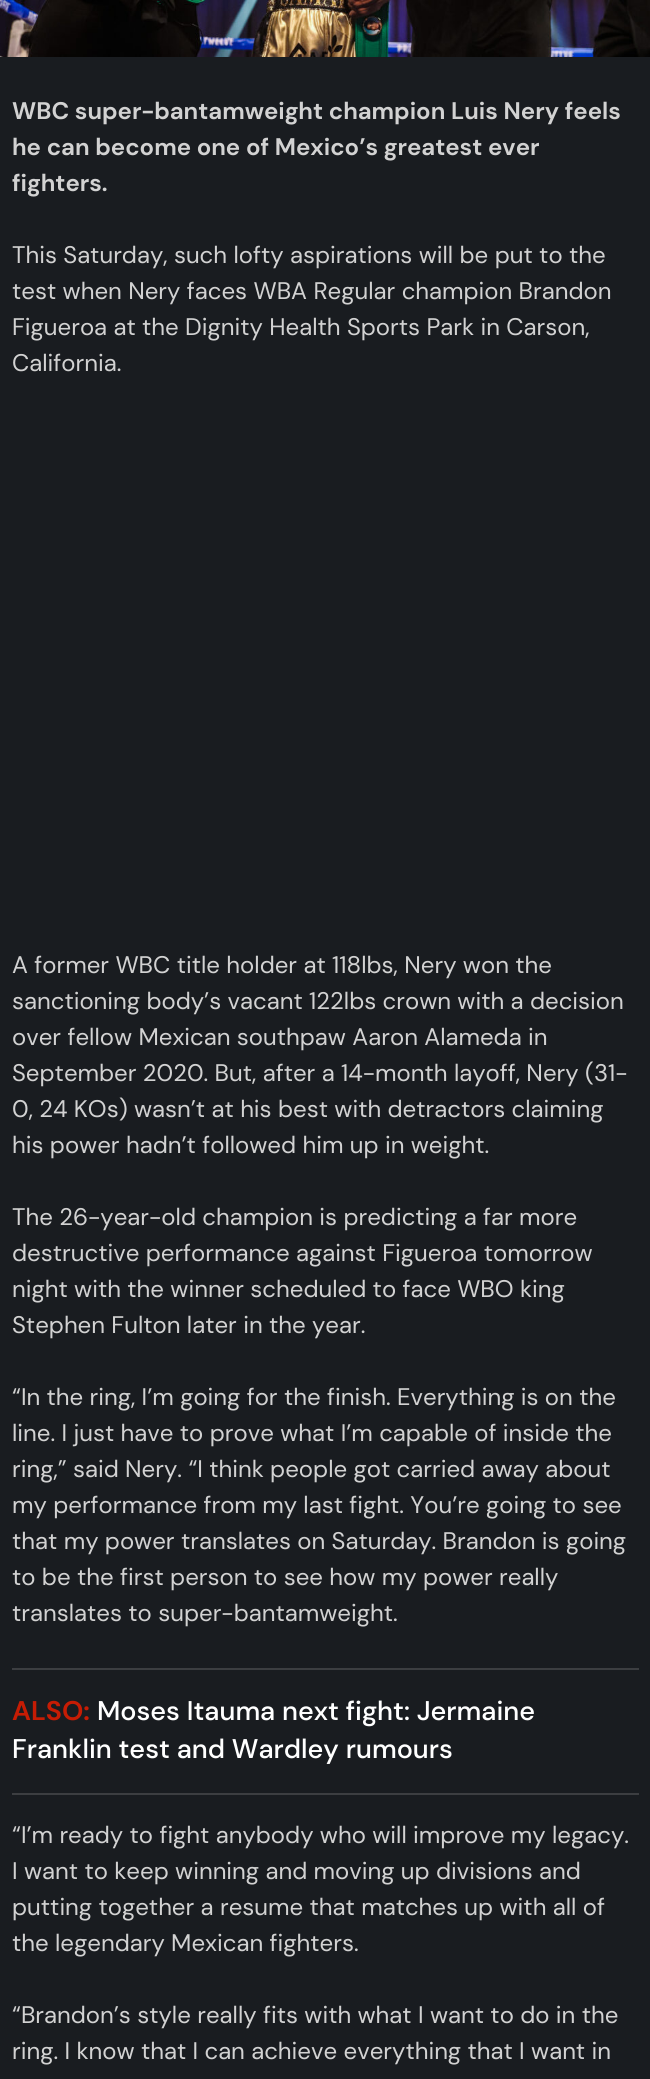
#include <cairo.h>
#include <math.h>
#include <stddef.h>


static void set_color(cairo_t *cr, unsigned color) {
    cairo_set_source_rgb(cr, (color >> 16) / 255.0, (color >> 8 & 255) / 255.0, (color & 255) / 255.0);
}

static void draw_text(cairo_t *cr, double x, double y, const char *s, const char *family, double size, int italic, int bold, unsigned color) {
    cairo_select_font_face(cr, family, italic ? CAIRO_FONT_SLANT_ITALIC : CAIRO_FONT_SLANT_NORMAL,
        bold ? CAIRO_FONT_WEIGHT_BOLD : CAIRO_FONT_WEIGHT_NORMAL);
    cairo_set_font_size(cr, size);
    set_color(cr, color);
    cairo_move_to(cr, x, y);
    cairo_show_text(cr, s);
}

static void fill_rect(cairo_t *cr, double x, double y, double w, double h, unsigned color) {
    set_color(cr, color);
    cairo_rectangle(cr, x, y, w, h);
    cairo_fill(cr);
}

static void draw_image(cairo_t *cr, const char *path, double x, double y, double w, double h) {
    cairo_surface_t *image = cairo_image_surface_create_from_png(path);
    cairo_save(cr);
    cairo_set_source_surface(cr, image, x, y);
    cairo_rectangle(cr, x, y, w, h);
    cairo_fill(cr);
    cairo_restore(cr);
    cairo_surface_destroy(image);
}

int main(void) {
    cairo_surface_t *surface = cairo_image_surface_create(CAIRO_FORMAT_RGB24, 650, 2079);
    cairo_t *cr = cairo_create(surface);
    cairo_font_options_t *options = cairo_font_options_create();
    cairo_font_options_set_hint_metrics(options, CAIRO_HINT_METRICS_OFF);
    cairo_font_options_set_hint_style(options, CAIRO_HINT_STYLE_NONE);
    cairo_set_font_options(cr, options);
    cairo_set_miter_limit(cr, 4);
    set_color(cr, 0x191C20);
    cairo_paint(cr);
    draw_image(cr, "assets/img1.png", 0, 0, 650, 57);
    draw_text(cr, 12, 119, "WBC super-bantamweight champion Luis Nery feels", "DM Sans", 24, 0, 1, 0xD2D2D2);
    draw_text(cr, 12, 155, "he can become one of Mexico’s greatest ever", "DM Sans", 24, 0, 1, 0xD2D2D2);
    draw_text(cr, 12, 191, "fighters.", "DM Sans", 24, 0, 1, 0xD2D2D2);
    draw_text(cr, 12, 263, "This Saturday, such lofty aspirations will be put to the", "DM Sans", 24, 0, 0, 0xD2D2D2);
    draw_text(cr, 12, 299, "test when Nery faces WBA Regular champion Brandon", "DM Sans", 24, 0, 0, 0xD2D2D2);
    draw_text(cr, 12, 335, "Figueroa at the Dignity Health Sports Park in Carson,", "DM Sans", 24, 0, 0, 0xD2D2D2);
    draw_text(cr, 12, 371, "California.", "DM Sans", 24, 0, 0, 0xD2D2D2);
    draw_text(cr, 12, 973, "A former WBC title holder at 118lbs, Nery won the", "DM Sans", 24, 0, 0, 0xD2D2D2);
    draw_text(cr, 12, 1009, "sanctioning body’s vacant 122lbs crown with a decision", "DM Sans", 24, 0, 0, 0xD2D2D2);
    draw_text(cr, 12, 1045, "over fellow Mexican southpaw Aaron Alameda in", "DM Sans", 24, 0, 0, 0xD2D2D2);
    draw_text(cr, 12, 1081, "September 2020. But, after a 14-month layoff, Nery (31-", "DM Sans", 24, 0, 0, 0xD2D2D2);
    draw_text(cr, 12, 1117, "0, 24 KOs) wasn’t at his best with detractors claiming", "DM Sans", 24, 0, 0, 0xD2D2D2);
    draw_text(cr, 12, 1153, "his power hadn’t followed him up in weight.", "DM Sans", 24, 0, 0, 0xD2D2D2);
    draw_text(cr, 12, 1225, "The 26-year-old champion is predicting a far more", "DM Sans", 24, 0, 0, 0xD2D2D2);
    draw_text(cr, 12, 1261, "destructive performance against Figueroa tomorrow", "DM Sans", 24, 0, 0, 0xD2D2D2);
    draw_text(cr, 12, 1297, "night with the winner scheduled to face WBO king", "DM Sans", 24, 0, 0, 0xD2D2D2);
    draw_text(cr, 12, 1333, "Stephen Fulton later in the year.", "DM Sans", 24, 0, 0, 0xD2D2D2);
    draw_text(cr, 12, 1405, "“In the ring, I’m going for the finish. Everything is on the", "DM Sans", 24, 0, 0, 0xD2D2D2);
    draw_text(cr, 12, 1441, "line. I just have to prove what I’m capable of inside the", "DM Sans", 24, 0, 0, 0xD2D2D2);
    draw_text(cr, 12, 1477, "ring,” said Nery. “I think people got carried away about", "DM Sans", 24, 0, 0, 0xD2D2D2);
    draw_text(cr, 12, 1513, "my performance from my last fight. You’re going to see", "DM Sans", 24, 0, 0, 0xD2D2D2);
    draw_text(cr, 12, 1549, "that my power translates on Saturday. Brandon is going", "DM Sans", 24, 0, 0, 0xD2D2D2);
    draw_text(cr, 12, 1585, "to be the first person to see how my power really", "DM Sans", 24, 0, 0, 0xD2D2D2);
    draw_text(cr, 12, 1621, "translates to super-bantamweight.", "DM Sans", 24, 0, 0, 0xD2D2D2);
    fill_rect(cr, 12, 1668, 627, 2, 0x3C3E41);
    fill_rect(cr, 12, 1793, 627, 2, 0x3C3E41);
    draw_text(cr, 12, 1720, "ALSO:", "DM Sans", 27, 0, 1, 0xC61C04);
    draw_text(cr, 97, 1720, "Moses Itauma next fight: Jermaine", "DM Sans Medium", 27, 0, 0, 0xFFFFFF);
    draw_text(cr, 12, 1758, "Franklin test and Wardley rumours", "DM Sans Medium", 27, 0, 0, 0xFFFFFF);
    draw_text(cr, 12, 1843, "“I’m ready to fight anybody who will improve my legacy.", "DM Sans", 24, 0, 0, 0xD2D2D2);
    draw_text(cr, 12, 1879, "I want to keep winning and moving up divisions and", "DM Sans", 24, 0, 0, 0xD2D2D2);
    draw_text(cr, 12, 1915, "putting together a resume that matches up with all of", "DM Sans", 24, 0, 0, 0xD2D2D2);
    draw_text(cr, 12, 1951, "the legendary Mexican fighters.", "DM Sans", 24, 0, 0, 0xD2D2D2);
    draw_text(cr, 12, 2023, "“Brandon’s style really fits with what I want to do in the", "DM Sans", 24, 0, 0, 0xD2D2D2);
    draw_text(cr, 12, 2059, "ring. I know that I can achieve everything that I want in", "DM Sans", 24, 0, 0, 0xD2D2D2);
    cairo_surface_write_to_png(surface, "output.png");
    cairo_font_options_destroy(options);
    cairo_destroy(cr);
    cairo_surface_destroy(surface);
    return 0;
}
